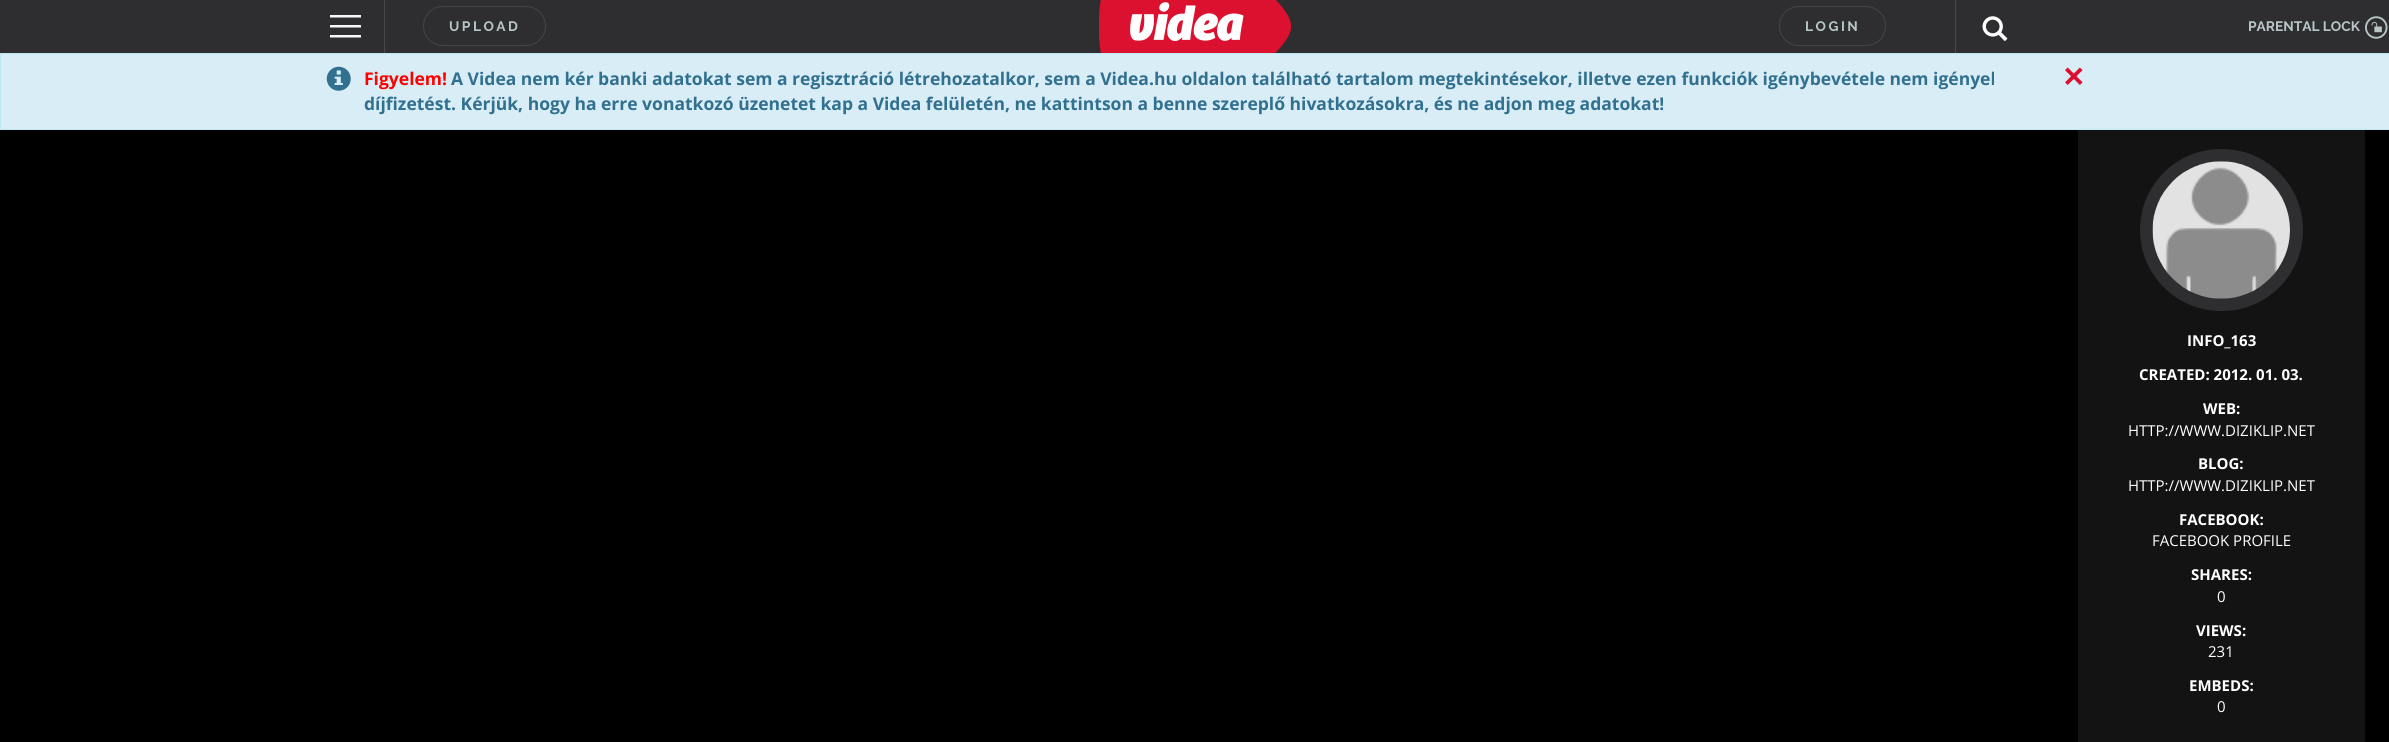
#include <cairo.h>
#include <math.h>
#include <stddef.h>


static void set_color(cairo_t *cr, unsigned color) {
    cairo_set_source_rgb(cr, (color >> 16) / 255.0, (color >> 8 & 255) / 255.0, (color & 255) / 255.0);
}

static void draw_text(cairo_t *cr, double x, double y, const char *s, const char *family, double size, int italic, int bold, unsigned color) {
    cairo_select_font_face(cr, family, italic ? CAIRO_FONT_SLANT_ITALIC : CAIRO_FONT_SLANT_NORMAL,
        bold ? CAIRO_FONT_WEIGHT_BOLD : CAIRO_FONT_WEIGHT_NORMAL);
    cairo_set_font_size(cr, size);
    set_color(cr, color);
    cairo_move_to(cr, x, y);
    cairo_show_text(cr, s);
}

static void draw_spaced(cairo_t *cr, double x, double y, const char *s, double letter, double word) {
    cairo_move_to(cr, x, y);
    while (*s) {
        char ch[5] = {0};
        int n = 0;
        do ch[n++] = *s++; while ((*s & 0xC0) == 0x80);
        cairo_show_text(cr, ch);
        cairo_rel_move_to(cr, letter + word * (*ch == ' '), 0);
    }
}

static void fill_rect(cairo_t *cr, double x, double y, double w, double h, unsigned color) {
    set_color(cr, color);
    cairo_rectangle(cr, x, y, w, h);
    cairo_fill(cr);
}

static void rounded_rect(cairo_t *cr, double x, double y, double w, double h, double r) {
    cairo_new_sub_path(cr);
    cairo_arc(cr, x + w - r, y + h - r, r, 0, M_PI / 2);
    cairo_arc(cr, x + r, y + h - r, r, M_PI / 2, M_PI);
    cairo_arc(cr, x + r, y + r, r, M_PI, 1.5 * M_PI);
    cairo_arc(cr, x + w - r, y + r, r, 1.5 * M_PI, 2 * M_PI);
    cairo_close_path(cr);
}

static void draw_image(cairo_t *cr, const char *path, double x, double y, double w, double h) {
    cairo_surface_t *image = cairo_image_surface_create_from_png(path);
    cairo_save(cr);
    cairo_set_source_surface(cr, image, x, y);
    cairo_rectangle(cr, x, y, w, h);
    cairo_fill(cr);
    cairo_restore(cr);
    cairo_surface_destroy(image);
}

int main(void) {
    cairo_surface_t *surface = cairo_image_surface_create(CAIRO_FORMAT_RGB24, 2389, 742);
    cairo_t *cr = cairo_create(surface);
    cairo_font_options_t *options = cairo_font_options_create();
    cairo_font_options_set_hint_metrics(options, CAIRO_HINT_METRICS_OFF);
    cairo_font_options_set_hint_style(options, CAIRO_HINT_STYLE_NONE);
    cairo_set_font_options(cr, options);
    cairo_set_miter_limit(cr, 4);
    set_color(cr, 0xD9EDF7);
    cairo_paint(cr);
    fill_rect(cr, 0, 0, 2389, 53, 0x2E2E30);
    draw_image(cr, "assets/img1.png", 1099, 0, 192, 53);
    fill_rect(cr, 384, 0, 1, 53, 0x48484A);
    draw_image(cr, "assets/img2.png", 330, 15, 31, 23);
    rounded_rect(cr, 423.5, 6.5, 122, 39, 19.5);
    set_color(cr, 0x444444);
    cairo_set_line_width(cr, 1);
    cairo_stroke(cr);
    cairo_select_font_face(cr, "Raleway", CAIRO_FONT_SLANT_NORMAL, CAIRO_FONT_WEIGHT_BOLD);
    cairo_set_font_size(cr, 13.75);
    set_color(cr, 0xB8C5C6);
    draw_spaced(cr, 449, 31, "UPLOAD", 2.5, 0);
    rounded_rect(cr, 1779.5, 6.5, 106, 39, 19.5);
    set_color(cr, 0x444444);
    cairo_stroke(cr);
    set_color(cr, 0xB8C5C6);
    draw_spaced(cr, 1805, 31, "LOGIN", 2.5, 0);
    fill_rect(cr, 1955, 0, 1, 53, 0x48484A);
    draw_image(cr, "assets/img3.png", 1982, 16, 26, 26);
    draw_text(cr, 2248, 31, "PARENTAL LOCK", "Raleway", 13.75, 0, 1, 0xB8C5C6);
    draw_image(cr, "assets/img4.png", 2365, 16, 23, 23);
    cairo_rectangle(cr, 0.5, 53.5, 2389, 76);
    set_color(cr, 0xBCE8F1);
    cairo_stroke(cr);
    draw_image(cr, "assets/img5.png", 326, 66, 25, 25);
    draw_text(cr, 364, 85, "Figyelem!", "Open Sans", 17.5, 0, 1, 0xFF0000);
    draw_text(cr, 451, 85, "A Videa nem kér banki adatokat sem a regisztráció létrehozatalkor, sem a Videa.hu oldalon található tartalom megtekintésekor, illetve ezen funkciók igénybevétele nem igényel", "Open Sans", 17.5, 0, 1, 0x31708F);
    draw_text(cr, 364, 110, "díjfizetést. Kérjük, hogy ha erre vonatkozó üzenetet kap a Videa felületén, ne kattintson a benne szereplő hivatkozásokra, és ne adjon meg adatokat!", "Open Sans", 17.5, 0, 1, 0x31708F);
    draw_image(cr, "assets/img6.png", 2065, 67, 18, 18);
    fill_rect(cr, 0, 130, 2389, 612, 0x000000);
    fill_rect(cr, 2078, 130, 287, 612, 0x131313);
    rounded_rect(cr, 2146.5, 155.5, 150, 149, 74.5);
    set_color(cr, 0x2E2E30);
    cairo_set_line_width(cr, 13);
    cairo_stroke(cr);
    draw_image(cr, "assets/img7.png", 2152, 161, 138, 138);
    draw_text(cr, 2187, 346, "INFO_163", "Open Sans", 15, 0, 1, 0xFFFFFF);
    draw_text(cr, 2139, 380, "CREATED: 2012. 01. 03.", "Open Sans", 15, 0, 1, 0xFFFFFF);
    draw_text(cr, 2203, 414, "WEB:", "Open Sans", 15, 0, 1, 0xFFFFFF);
    draw_text(cr, 2128, 436, "HTTP://WWW.DIZIKLIP.NET", "Open Sans", 15, 0, 0, 0xFFFFFF);
    draw_text(cr, 2198, 469, "BLOG:", "Open Sans", 15, 0, 1, 0xFFFFFF);
    draw_text(cr, 2128, 491, "HTTP://WWW.DIZIKLIP.NET", "Open Sans", 15, 0, 0, 0xFFFFFF);
    draw_text(cr, 2179, 525, "FACEBOOK:", "Open Sans", 15, 0, 1, 0xFFFFFF);
    draw_text(cr, 2152, 546, "FACEBOOK PROFILE", "Open Sans", 15, 0, 0, 0xFFFFFF);
    draw_text(cr, 2191, 580, "SHARES:", "Open Sans", 15, 0, 1, 0xFFFFFF);
    draw_text(cr, 2217, 602, "0", "Open Sans", 15, 0, 0, 0xFFFFFF);
    draw_text(cr, 2196, 636, "VIEWS:", "Open Sans", 15, 0, 1, 0xFFFFFF);
    draw_text(cr, 2208, 657, "231", "Open Sans", 15, 0, 0, 0xFFFFFF);
    draw_text(cr, 2189, 691, "EMBEDS:", "Open Sans", 15, 0, 1, 0xFFFFFF);
    draw_text(cr, 2217, 712, "0", "Open Sans", 15, 0, 0, 0xFFFFFF);
    cairo_surface_write_to_png(surface, "output.png");
    cairo_font_options_destroy(options);
    cairo_destroy(cr);
    cairo_surface_destroy(surface);
    return 0;
}
